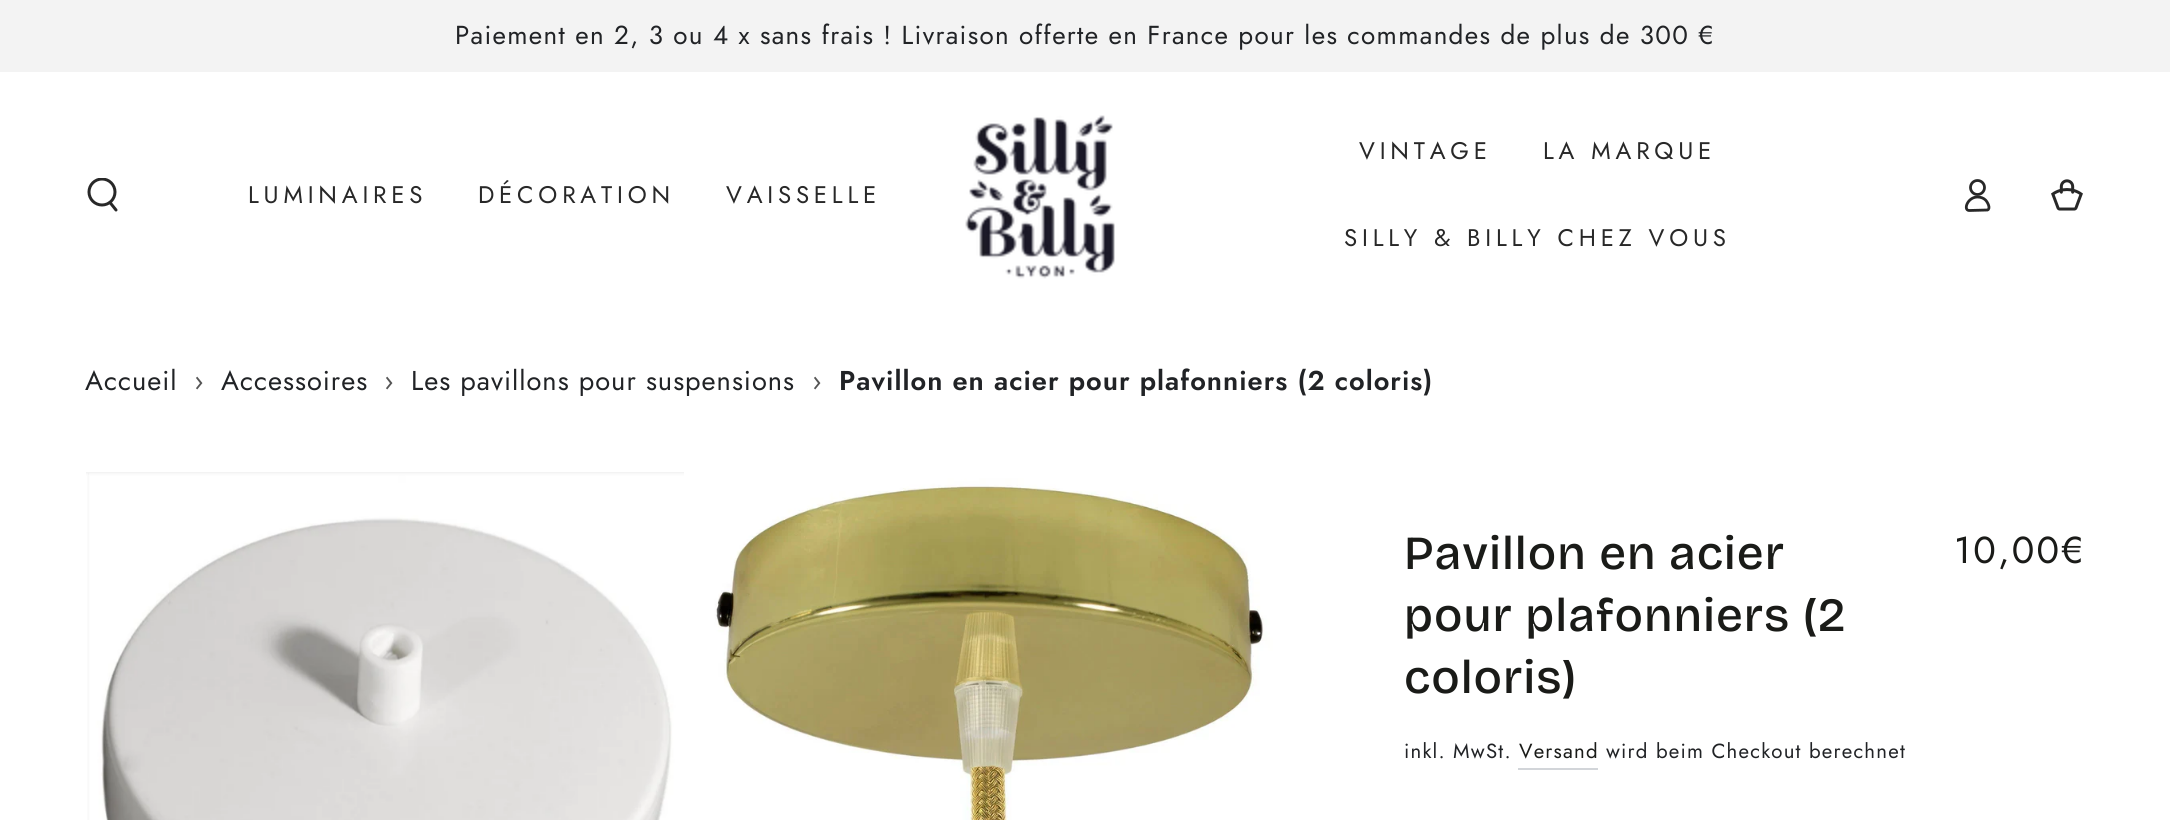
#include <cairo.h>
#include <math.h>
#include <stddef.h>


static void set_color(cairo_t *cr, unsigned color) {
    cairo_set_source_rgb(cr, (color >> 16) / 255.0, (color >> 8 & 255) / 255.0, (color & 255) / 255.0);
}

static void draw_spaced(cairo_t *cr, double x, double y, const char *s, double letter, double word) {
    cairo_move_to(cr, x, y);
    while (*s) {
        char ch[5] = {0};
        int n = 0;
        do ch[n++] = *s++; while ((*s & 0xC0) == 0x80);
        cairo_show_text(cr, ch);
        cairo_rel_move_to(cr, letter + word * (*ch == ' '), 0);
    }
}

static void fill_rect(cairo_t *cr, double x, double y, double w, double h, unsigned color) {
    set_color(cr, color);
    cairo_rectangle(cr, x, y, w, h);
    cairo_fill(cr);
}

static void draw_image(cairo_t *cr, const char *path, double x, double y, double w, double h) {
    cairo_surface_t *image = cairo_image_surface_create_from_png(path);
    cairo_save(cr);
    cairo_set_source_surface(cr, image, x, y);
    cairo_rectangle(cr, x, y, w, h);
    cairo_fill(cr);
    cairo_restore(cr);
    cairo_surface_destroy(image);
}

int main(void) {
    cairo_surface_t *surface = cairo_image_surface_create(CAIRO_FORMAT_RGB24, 2170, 820);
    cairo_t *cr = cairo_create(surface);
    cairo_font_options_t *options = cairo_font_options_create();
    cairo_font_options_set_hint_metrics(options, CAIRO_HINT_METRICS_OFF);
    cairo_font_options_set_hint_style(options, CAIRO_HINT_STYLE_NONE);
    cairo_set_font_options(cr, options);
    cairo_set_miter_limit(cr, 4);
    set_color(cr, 0xFFFFFF);
    cairo_paint(cr);
    fill_rect(cr, 0, 0, 2170, 72, 0xF3F3F3);
    cairo_select_font_face(cr, "Jost", CAIRO_FONT_SLANT_NORMAL, CAIRO_FONT_WEIGHT_NORMAL);
    cairo_set_font_size(cr, 26);
    set_color(cr, 0x212326);
    draw_spaced(cr, 455, 44, "Paiement en 2, 3 ou 4 x sans frais ! Livraison offerte en France pour les commandes de plus de 300 €", 1.33, 0);
    cairo_save(cr);
    cairo_rectangle(cr, 86, 178, 34, 34);
    cairo_clip(cr);
    cairo_arc(cr, 102, 192, 13, 0, 2 * M_PI);
    set_color(cr, 0x282828);
    cairo_set_line_width(cr, 3);
    cairo_stroke(cr);
    cairo_restore(cr);
    cairo_new_path(cr);
    cairo_move_to(cr, 110, 202.5);
    cairo_line_to(cr, 116, 210);
    set_color(cr, 0x282828);
    cairo_set_line_width(cr, 3);
    cairo_set_line_cap(cr, CAIRO_LINE_CAP_ROUND);
    cairo_stroke(cr);
    cairo_set_font_size(cr, 24);
    draw_spaced(cr, 248, 203, "LUMINAIRES", 4.8, 0);
    draw_spaced(cr, 478, 203, "DÉCORATION", 4.8, 0);
    draw_spaced(cr, 726, 203, "VAISSELLE", 4.8, 0);
    draw_image(cr, "assets/img1.png", 965, 115, 150, 164);
    draw_spaced(cr, 1359, 159, "VINTAGE", 4.8, 0);
    draw_spaced(cr, 1543, 159, "LA MARQUE", 4.8, 0);
    draw_spaced(cr, 1344, 246, "SILLY & BILLY CHEZ VOUS", 4.8, 0);
    cairo_new_path(cr);
    cairo_move_to(cr, 1977.5, 197);
    cairo_curve_to(cr, 1967.5, 197, 1963, 210, 1969, 210.5);
    cairo_line_to(cr, 1987.5, 210);
    cairo_curve_to(cr, 1991, 208.5, 1987.5, 202, 1985.5, 200);
    cairo_curve_to(cr, 1983.5, 198, 1980.5, 197, 1977.5, 197);
    cairo_close_path(cr);
    cairo_set_line_width(cr, 2.8);
    cairo_set_line_cap(cr, CAIRO_LINE_CAP_BUTT);
    cairo_stroke(cr);
    cairo_arc(cr, 1977.5, 187.5, 7, 0, 2 * M_PI);
    cairo_stroke(cr);
    draw_image(cr, "assets/img2.png", 2051, 179, 32, 32);
    cairo_set_font_size(cr, 27.2);
    set_color(cr, 0x212326);
    draw_spaced(cr, 85, 390, "Accueil", 1, 0);
    set_color(cr, 0x555555);
    draw_spaced(cr, 194, 390, "›", 1, 0);
    set_color(cr, 0x212326);
    draw_spaced(cr, 221, 390, "Accessoires", 1, 0);
    set_color(cr, 0x555555);
    draw_spaced(cr, 384, 390, "›", 1, 0);
    set_color(cr, 0x212326);
    draw_spaced(cr, 411, 390, "Les pavillons pour suspensions", 1, 0);
    set_color(cr, 0x555555);
    draw_spaced(cr, 812, 390, "›", 1, 0);
    cairo_select_font_face(cr, "Jost SemiBold", CAIRO_FONT_SLANT_NORMAL, CAIRO_FONT_WEIGHT_NORMAL);
    set_color(cr, 0x212326);
    draw_spaced(cr, 839, 390, "Pavillon en acier pour plafonniers (2 coloris)", 1, 0);
    fill_rect(cr, 86, 472, 598, 1, 0xF3F3F3);
    draw_image(cr, "assets/img3.png", 86, 473, 598, 347);
    draw_image(cr, "assets/img4.png", 686, 472, 598, 348);
    cairo_select_font_face(cr, "Bricolage Grotesque Medium", CAIRO_FONT_SLANT_NORMAL, CAIRO_FONT_WEIGHT_NORMAL);
    cairo_set_font_size(cr, 47.5);
    set_color(cr, 0x1A1B18);
    draw_spaced(cr, 1404, 569, "Pavillon en acier", 1, 0);
    draw_spaced(cr, 1404, 631, "pour plafonniers (2", 1, 0);
    draw_spaced(cr, 1404, 693, "coloris)", 1, 0);
    cairo_select_font_face(cr, "Jost", CAIRO_FONT_SLANT_NORMAL, CAIRO_FONT_WEIGHT_NORMAL);
    cairo_set_font_size(cr, 37.5);
    draw_spaced(cr, 1954, 563, "10,00€", 2.25, 0);
    cairo_set_font_size(cr, 20.4);
    set_color(cr, 0x212326);
    draw_spaced(cr, 1404, 758, "inkl. MwSt.", 1.2, 0);
    set_color(cr, 0x1A1B18);
    draw_spaced(cr, 1519, 758, "Versand", 1.2, 0);
    fill_rect(cr, 1518, 768, 80, 2, 0xD2D5D9);
    set_color(cr, 0x212326);
    draw_spaced(cr, 1606, 758, "wird beim Checkout berechnet", 1.2, 0);
    cairo_surface_write_to_png(surface, "output.png");
    cairo_font_options_destroy(options);
    cairo_destroy(cr);
    cairo_surface_destroy(surface);
    return 0;
}
